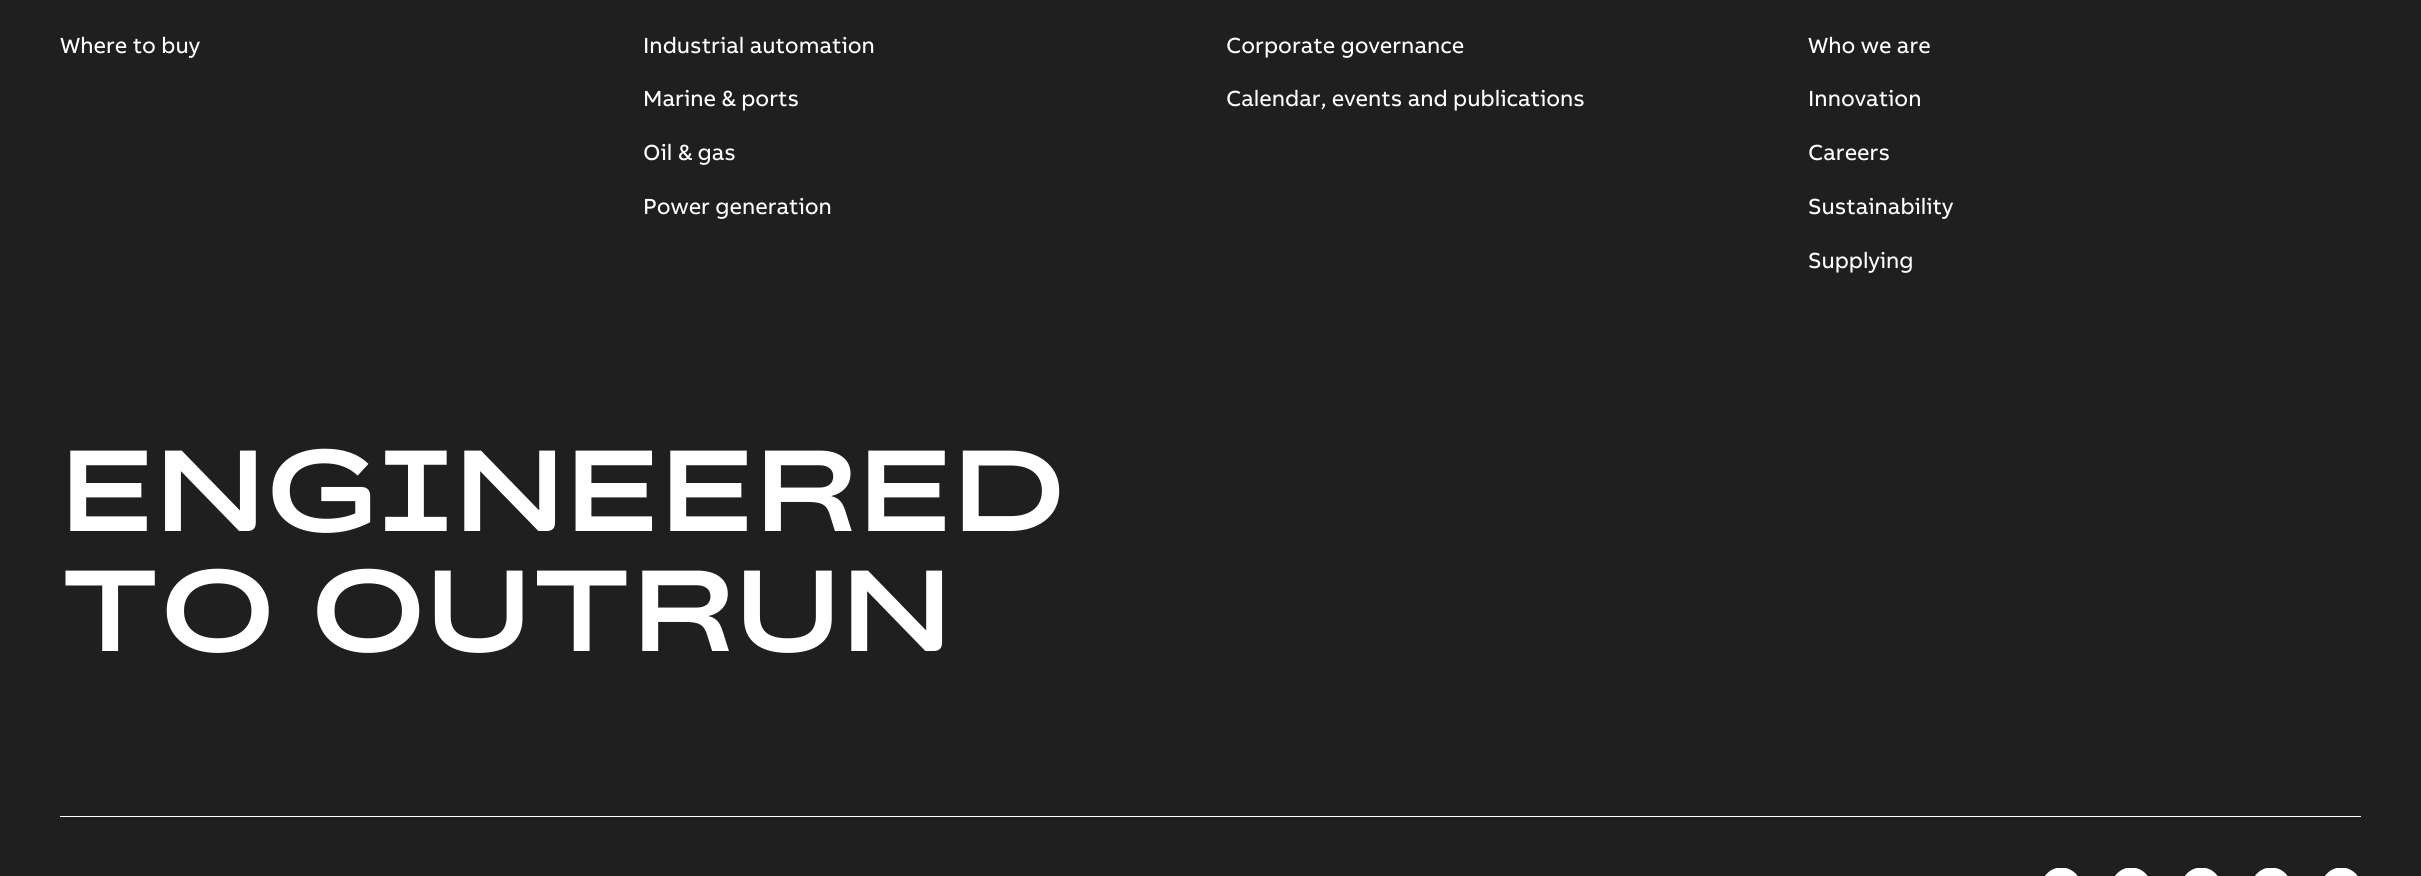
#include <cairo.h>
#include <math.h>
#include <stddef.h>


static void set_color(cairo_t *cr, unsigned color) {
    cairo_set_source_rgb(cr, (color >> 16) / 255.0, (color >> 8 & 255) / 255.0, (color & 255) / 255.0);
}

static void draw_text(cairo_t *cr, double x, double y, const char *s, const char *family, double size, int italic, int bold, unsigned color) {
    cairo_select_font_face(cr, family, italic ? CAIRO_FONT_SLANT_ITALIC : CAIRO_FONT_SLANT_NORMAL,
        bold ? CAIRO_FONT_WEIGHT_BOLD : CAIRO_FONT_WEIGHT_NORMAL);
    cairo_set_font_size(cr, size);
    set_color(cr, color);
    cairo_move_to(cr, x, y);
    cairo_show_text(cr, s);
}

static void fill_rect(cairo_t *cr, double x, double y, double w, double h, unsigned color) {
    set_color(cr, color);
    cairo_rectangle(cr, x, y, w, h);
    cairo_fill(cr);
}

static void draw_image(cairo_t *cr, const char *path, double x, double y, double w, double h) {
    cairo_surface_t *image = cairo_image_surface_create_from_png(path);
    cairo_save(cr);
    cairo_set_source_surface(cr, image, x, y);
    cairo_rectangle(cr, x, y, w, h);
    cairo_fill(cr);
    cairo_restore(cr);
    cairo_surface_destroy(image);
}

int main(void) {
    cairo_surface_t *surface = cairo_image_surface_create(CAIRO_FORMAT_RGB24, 2421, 876);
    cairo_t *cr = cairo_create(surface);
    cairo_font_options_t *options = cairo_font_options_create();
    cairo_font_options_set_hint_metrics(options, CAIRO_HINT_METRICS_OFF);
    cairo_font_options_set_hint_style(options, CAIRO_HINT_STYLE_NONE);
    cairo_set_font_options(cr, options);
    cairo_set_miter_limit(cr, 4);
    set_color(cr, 0x1F1F1F);
    cairo_paint(cr);
    draw_text(cr, 60, 53, "Where to buy", "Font", 22.5, 0, 0, 0xFFFFFF);
    draw_text(cr, 643, 53, "Industrial automation", "Font", 22.5, 0, 0, 0xFFFFFF);
    draw_text(cr, 643, 106, "Marine & ports", "Font", 22.5, 0, 0, 0xFFFFFF);
    draw_text(cr, 643, 160, "Oil & gas", "Font", 22.5, 0, 0, 0xFFFFFF);
    draw_text(cr, 643, 214, "Power generation", "Font", 22.5, 0, 0, 0xFFFFFF);
    draw_text(cr, 1226, 53, "Corporate governance", "Font", 22.5, 0, 0, 0xFFFFFF);
    draw_text(cr, 1226, 106, "Calendar, events and publications", "Font", 22.5, 0, 0, 0xFFFFFF);
    draw_text(cr, 1808, 53, "Who we are", "Font", 22.5, 0, 0, 0xFFFFFF);
    draw_text(cr, 1808, 106, "Innovation", "Font", 22.5, 0, 0, 0xFFFFFF);
    draw_text(cr, 1808, 160, "Careers", "Font", 22.5, 0, 0, 0xFFFFFF);
    draw_text(cr, 1808, 214, "Sustainability", "Font", 22.5, 0, 0, 0xFFFFFF);
    draw_text(cr, 1808, 268, "Supplying", "Font", 22.5, 0, 0, 0xFFFFFF);
    draw_text(cr, 60, 531, "ENGINEERED", "Font SemiBold", 120, 0, 0, 0xFFFFFF);
    draw_text(cr, 60, 651, "TO OUTRUN", "Font SemiBold", 120, 0, 0, 0xFFFFFF);
    fill_rect(cr, 60, 816, 2301, 1, 0xFFFFFF);
    draw_image(cr, "assets/img1.png", 2045, 868, 33, 8);
    draw_image(cr, "assets/img1.png", 2115, 868, 33, 8);
    draw_image(cr, "assets/img1.png", 2185, 868, 33, 8);
    draw_image(cr, "assets/img1.png", 2255, 868, 33, 8);
    draw_image(cr, "assets/img1.png", 2325, 868, 33, 8);
    cairo_surface_write_to_png(surface, "output.png");
    cairo_font_options_destroy(options);
    cairo_destroy(cr);
    cairo_surface_destroy(surface);
    return 0;
}
